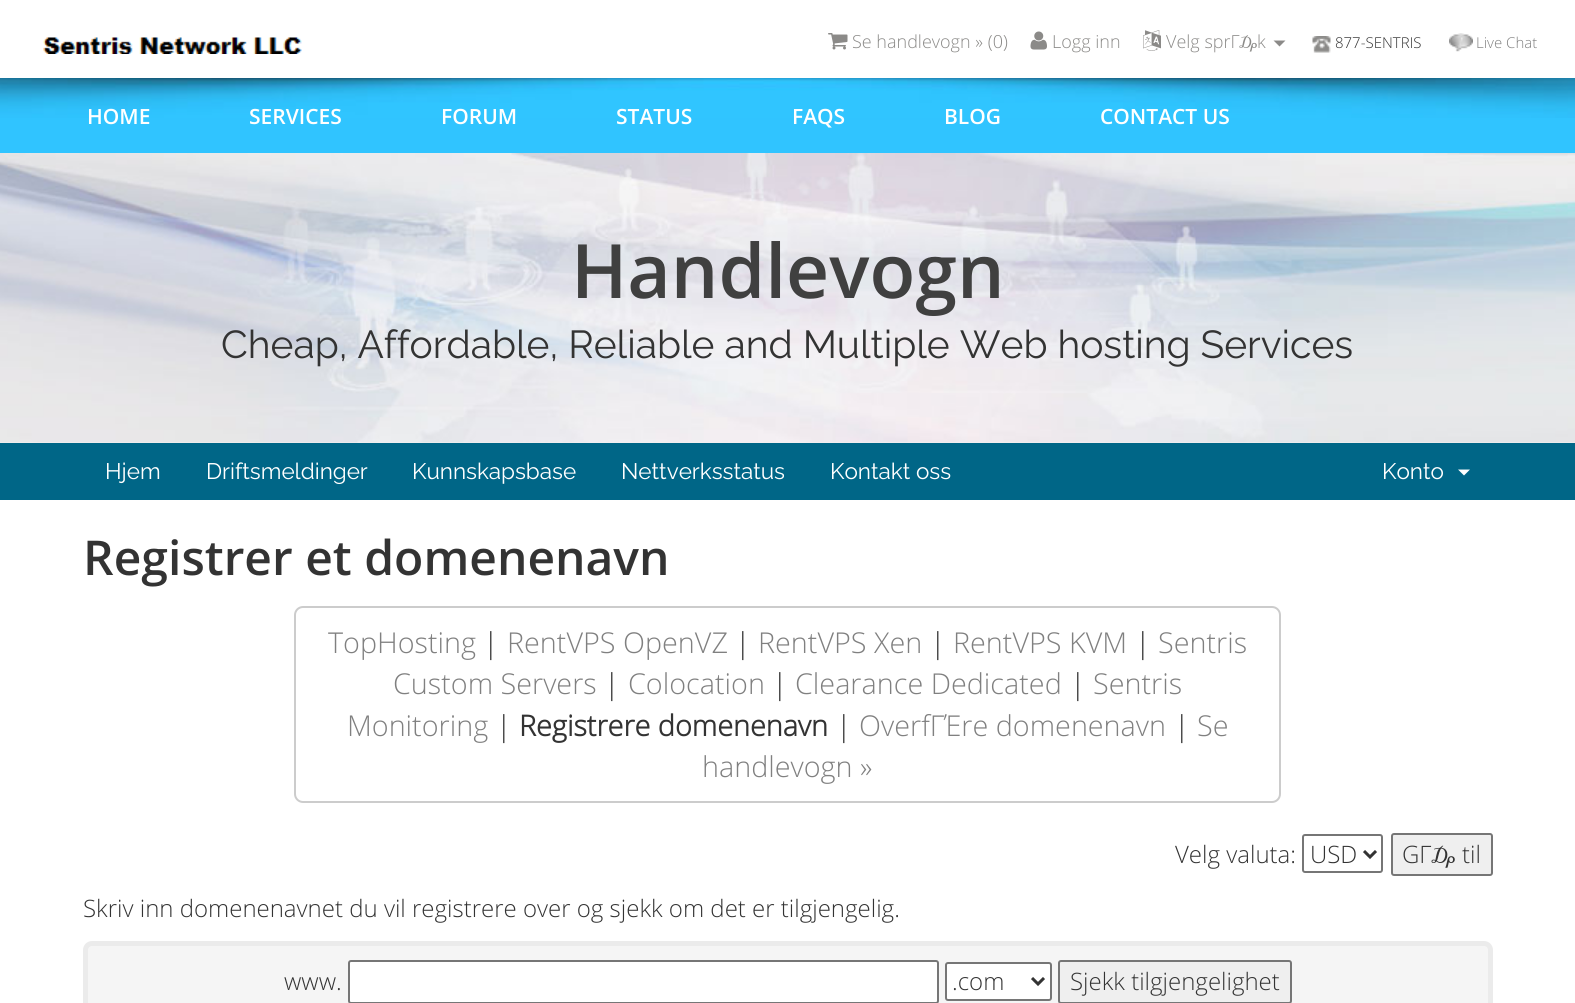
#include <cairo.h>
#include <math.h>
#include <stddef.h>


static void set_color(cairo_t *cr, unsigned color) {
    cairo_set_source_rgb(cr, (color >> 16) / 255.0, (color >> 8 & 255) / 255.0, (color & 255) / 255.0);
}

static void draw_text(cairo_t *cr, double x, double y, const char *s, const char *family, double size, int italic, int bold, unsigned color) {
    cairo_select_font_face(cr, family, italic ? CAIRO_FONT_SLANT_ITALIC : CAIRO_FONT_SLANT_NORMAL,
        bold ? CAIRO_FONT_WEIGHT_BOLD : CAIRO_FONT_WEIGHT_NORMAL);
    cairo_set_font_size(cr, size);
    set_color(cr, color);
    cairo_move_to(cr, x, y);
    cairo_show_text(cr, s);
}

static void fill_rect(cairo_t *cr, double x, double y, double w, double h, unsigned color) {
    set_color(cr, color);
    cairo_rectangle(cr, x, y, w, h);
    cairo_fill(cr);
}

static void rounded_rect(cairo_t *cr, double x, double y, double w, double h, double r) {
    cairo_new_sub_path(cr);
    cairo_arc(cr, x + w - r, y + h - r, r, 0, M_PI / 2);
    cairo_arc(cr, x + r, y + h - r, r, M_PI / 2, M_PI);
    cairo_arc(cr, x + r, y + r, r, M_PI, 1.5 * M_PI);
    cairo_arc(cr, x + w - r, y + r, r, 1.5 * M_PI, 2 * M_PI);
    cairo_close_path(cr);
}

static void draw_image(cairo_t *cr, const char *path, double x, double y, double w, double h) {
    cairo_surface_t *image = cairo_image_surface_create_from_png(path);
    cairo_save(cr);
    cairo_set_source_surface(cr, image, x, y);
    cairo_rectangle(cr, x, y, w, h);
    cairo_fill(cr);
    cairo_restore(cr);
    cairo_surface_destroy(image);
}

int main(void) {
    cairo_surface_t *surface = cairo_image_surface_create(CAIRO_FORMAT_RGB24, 1575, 1003);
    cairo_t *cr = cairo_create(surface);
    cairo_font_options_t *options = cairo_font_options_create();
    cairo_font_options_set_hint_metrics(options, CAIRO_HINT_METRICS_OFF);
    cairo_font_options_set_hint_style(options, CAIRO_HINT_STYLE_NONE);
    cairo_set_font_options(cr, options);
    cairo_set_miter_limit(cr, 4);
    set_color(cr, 0xFFFFFF);
    cairo_paint(cr);
    draw_image(cr, "assets/img1.png", 43, 37, 259, 17);
    draw_image(cr, "assets/img2.png", 828, 33, 20, 17);
    draw_text(cr, 852, 48, "Se handlevogn » (0)", "Open Sans Light", 18, 0, 0, 0x8B8A88);
    draw_image(cr, "assets/img3.png", 1030, 31, 17, 19);
    draw_text(cr, 1052, 48, "Logg inn", "Open Sans Light", 18, 0, 0, 0x8B8A88);
    draw_image(cr, "assets/img4.png", 1143, 30, 18, 21);
    draw_text(cr, 1166, 48, "Velg sprΓ", "Open Sans Light", 18, 0, 0, 0x8B8A88);
    draw_text(cr, 1239, 48, "₯", "Liberation Serif", 18, 0, 0, 0x8B8A88);
    draw_text(cr, 1257, 48, "k", "Open Sans Light", 18, 0, 0, 0x8B8A88);
    cairo_new_path(cr);
    cairo_move_to(cr, 1273.5, 40.5);
    cairo_line_to(cr, 1285.5, 40.5);
    cairo_line_to(cr, 1279.5, 46.5);
    cairo_close_path(cr);
    cairo_fill(cr);
    draw_image(cr, "assets/img5.png", 1312, 36, 19, 17);
    draw_text(cr, 1335, 48, "877-SENTRIS", "Open Sans Light", 15, 0, 0, 0x333333);
    draw_image(cr, "assets/img6.png", 1449, 33, 24, 19);
    draw_text(cr, 1476, 48, "Live Chat", "Open Sans Light", 15, 0, 0, 0x808080);
    fill_rect(cr, 0, 118, 1575, 35, 0x30C4FF);
    draw_image(cr, "assets/img7.png", 0, 78, 1575, 40);
    draw_text(cr, 87, 124, "HOME", "Open Sans SemiBold", 21, 0, 0, 0xFFFFFF);
    draw_text(cr, 249, 124, "SERVICES", "Open Sans SemiBold", 21, 0, 0, 0xFFFFFF);
    draw_text(cr, 441, 124, "FORUM", "Open Sans SemiBold", 21, 0, 0, 0xFFFFFF);
    draw_text(cr, 616, 124, "STATUS", "Open Sans SemiBold", 21, 0, 0, 0xFFFFFF);
    draw_text(cr, 792, 124, "FAQS", "Open Sans SemiBold", 21, 0, 0, 0xFFFFFF);
    draw_text(cr, 944, 124, "BLOG", "Open Sans SemiBold", 21, 0, 0, 0xFFFFFF);
    draw_text(cr, 1100, 124, "CONTACT US", "Open Sans SemiBold", 21, 0, 0, 0xFFFFFF);
    draw_image(cr, "assets/img8.png", 0, 442, 1575, 1);
    draw_image(cr, "assets/img9.png", 0, 153, 1575, 290);
    draw_text(cr, 571, 298, "Handlevogn", "Open Sans SemiBold", 75, 0, 0, 0x404040);
    draw_text(cr, 221, 358, "Cheap, Affordable, Reliable and Multiple Web hosting Services", "Raleway", 39, 0, 0, 0x333333);
    fill_rect(cr, 0, 443, 1575, 57, 0x006687);
    draw_text(cr, 105, 479, "Hjem", "Raleway", 22.5, 0, 0, 0xFFFFFF);
    draw_text(cr, 206, 479, "Driftsmeldinger", "Raleway", 22.5, 0, 0, 0xFFFFFF);
    draw_text(cr, 412, 479, "Kunnskapsbase", "Raleway", 22.5, 0, 0, 0xFFFFFF);
    draw_text(cr, 621, 479, "Nettverksstatus", "Raleway", 22.5, 0, 0, 0xFFFFFF);
    draw_text(cr, 830, 479, "Kontakt oss", "Raleway", 22.5, 0, 0, 0xFFFFFF);
    draw_text(cr, 1382, 479, "Konto", "Raleway", 22.5, 0, 0, 0xFFFFFF);
    cairo_new_path(cr);
    cairo_move_to(cr, 1458, 469.5);
    cairo_line_to(cr, 1470, 469.5);
    cairo_line_to(cr, 1464, 475.5);
    cairo_close_path(cr);
    cairo_fill(cr);
    draw_text(cr, 83, 575, "Registrer et domenenavn", "Open Sans SemiBold", 48, 0, 0, 0x333333);
    rounded_rect(cr, 295, 607, 985, 195, 8);
    set_color(cr, 0xCCCCCC);
    cairo_stroke(cr);
    draw_text(cr, 328, 653, "TopHosting", "Open Sans Light", 28.75, 0, 0, 0x808080);
    draw_text(cr, 483, 653, "|", "Open Sans Light", 28.75, 0, 0, 0x333333);
    draw_text(cr, 507, 653, "RentVPS OpenVZ", "Open Sans Light", 28.75, 0, 0, 0x808080);
    draw_text(cr, 735, 653, "|", "Open Sans Light", 28.75, 0, 0, 0x333333);
    draw_text(cr, 758, 653, "RentVPS Xen", "Open Sans Light", 28.75, 0, 0, 0x808080);
    draw_text(cr, 930, 653, "|", "Open Sans Light", 28.75, 0, 0, 0x333333);
    draw_text(cr, 953, 653, "RentVPS KVM", "Open Sans Light", 28.75, 0, 0, 0x808080);
    draw_text(cr, 1135, 653, "|", "Open Sans Light", 28.75, 0, 0, 0x333333);
    draw_text(cr, 1158, 653, "Sentris", "Open Sans Light", 28.75, 0, 0, 0x808080);
    draw_text(cr, 393, 694, "Custom Servers", "Open Sans Light", 28.75, 0, 0, 0x808080);
    draw_text(cr, 604, 694, "|", "Open Sans Light", 28.75, 0, 0, 0x333333);
    draw_text(cr, 628, 694, "Colocation", "Open Sans Light", 28.75, 0, 0, 0x808080);
    draw_text(cr, 772, 694, "|", "Open Sans Light", 28.75, 0, 0, 0x333333);
    draw_text(cr, 795, 694, "Clearance Dedicated", "Open Sans Light", 28.75, 0, 0, 0x808080);
    draw_text(cr, 1070, 694, "|", "Open Sans Light", 28.75, 0, 0, 0x333333);
    draw_text(cr, 1093, 694, "Sentris", "Open Sans Light", 28.75, 0, 0, 0x808080);
    draw_text(cr, 347, 736, "Monitoring", "Open Sans Light", 28.75, 0, 0, 0x808080);
    draw_text(cr, 496, 736, "|", "Open Sans Light", 28.75, 0, 0, 0x333333);
    draw_text(cr, 519, 736, "Registrere domenenavn", "Open Sans", 28.75, 0, 1, 0x333333);
    draw_text(cr, 836, 736, "|", "Open Sans Light", 28.75, 0, 0, 0x333333);
    draw_text(cr, 859, 736, "OverfΓΈre domenenavn", "Open Sans Light", 28.75, 0, 0, 0x808080);
    draw_text(cr, 1174, 736, "|", "Open Sans Light", 28.75, 0, 0, 0x333333);
    draw_text(cr, 1197, 736, "Se", "Open Sans Light", 28.75, 0, 0, 0x808080);
    draw_text(cr, 702, 777, "handlevogn »", "Open Sans Light", 28.75, 0, 0, 0x808080);
    draw_text(cr, 1175, 863, "Velg valuta:", "Open Sans Light", 24, 0, 0, 0x333333);
    rounded_rect(cr, 1303, 835, 79, 37, 2);
    set_color(cr, 0x767676);
    cairo_stroke(cr);
    cairo_new_path(cr);
    cairo_move_to(cr, 1364, 851);
    cairo_line_to(cr, 1370, 857);
    cairo_line_to(cr, 1376, 851);
    set_color(cr, 0x333333);
    cairo_set_line_width(cr, 3);
    cairo_stroke(cr);
    draw_text(cr, 1310, 863, "USD", "Open Sans Light", 24, 0, 0, 0x333333);
    set_color(cr, 0xEFEFEF);
    rounded_rect(cr, 1392, 834, 100, 41, 2);
    cairo_fill_preserve(cr);
    set_color(cr, 0x767676);
    cairo_set_line_width(cr, 2);
    cairo_stroke(cr);
    draw_text(cr, 1402, 863, "GΓ", "Open Sans Light", 24, 0, 0, 0x333333);
    draw_text(cr, 1431, 863, "₯", "Liberation Serif", 24, 0, 0, 0x333333);
    draw_text(cr, 1462, 863, "til", "Open Sans Light", 24, 0, 0, 0x333333);
    draw_text(cr, 83, 917, "Skriv inn domenenavnet du vil registrere over og sjekk om det er tilgjengelig.", "Open Sans Light", 24, 0, 0, 0x333333);
    set_color(cr, 0xF5F5F5);
    rounded_rect(cr, 85.5, 943.5, 1405, 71, 6.5);
    cairo_fill_preserve(cr);
    set_color(cr, 0xEBEBEB);
    cairo_set_line_width(cr, 5);
    cairo_stroke(cr);
    draw_text(cr, 284, 990, "www.", "Open Sans Light", 24, 0, 0, 0x333333);
    set_color(cr, 0xFFFFFF);
    rounded_rect(cr, 349, 961, 589, 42, 2);
    cairo_fill_preserve(cr);
    set_color(cr, 0x767676);
    cairo_set_line_width(cr, 2);
    cairo_stroke(cr);
    set_color(cr, 0xFFFFFF);
    rounded_rect(cr, 946, 963, 105, 37, 2);
    cairo_fill_preserve(cr);
    set_color(cr, 0x767676);
    cairo_stroke(cr);
    cairo_new_path(cr);
    cairo_move_to(cr, 1032, 978);
    cairo_line_to(cr, 1038, 984);
    cairo_line_to(cr, 1044, 978);
    set_color(cr, 0x333333);
    cairo_set_line_width(cr, 3);
    cairo_stroke(cr);
    draw_text(cr, 952, 990, ".com", "Open Sans Light", 24, 0, 0, 0x333333);
    set_color(cr, 0xEFEFEF);
    rounded_rect(cr, 1059, 961, 232, 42, 2);
    cairo_fill_preserve(cr);
    set_color(cr, 0x767676);
    cairo_set_line_width(cr, 2);
    cairo_stroke(cr);
    draw_text(cr, 1070, 990, "Sjekk tilgjengelighet", "Open Sans Light", 24, 0, 0, 0x333333);
    cairo_surface_write_to_png(surface, "output.png");
    cairo_font_options_destroy(options);
    cairo_destroy(cr);
    cairo_surface_destroy(surface);
    return 0;
}
